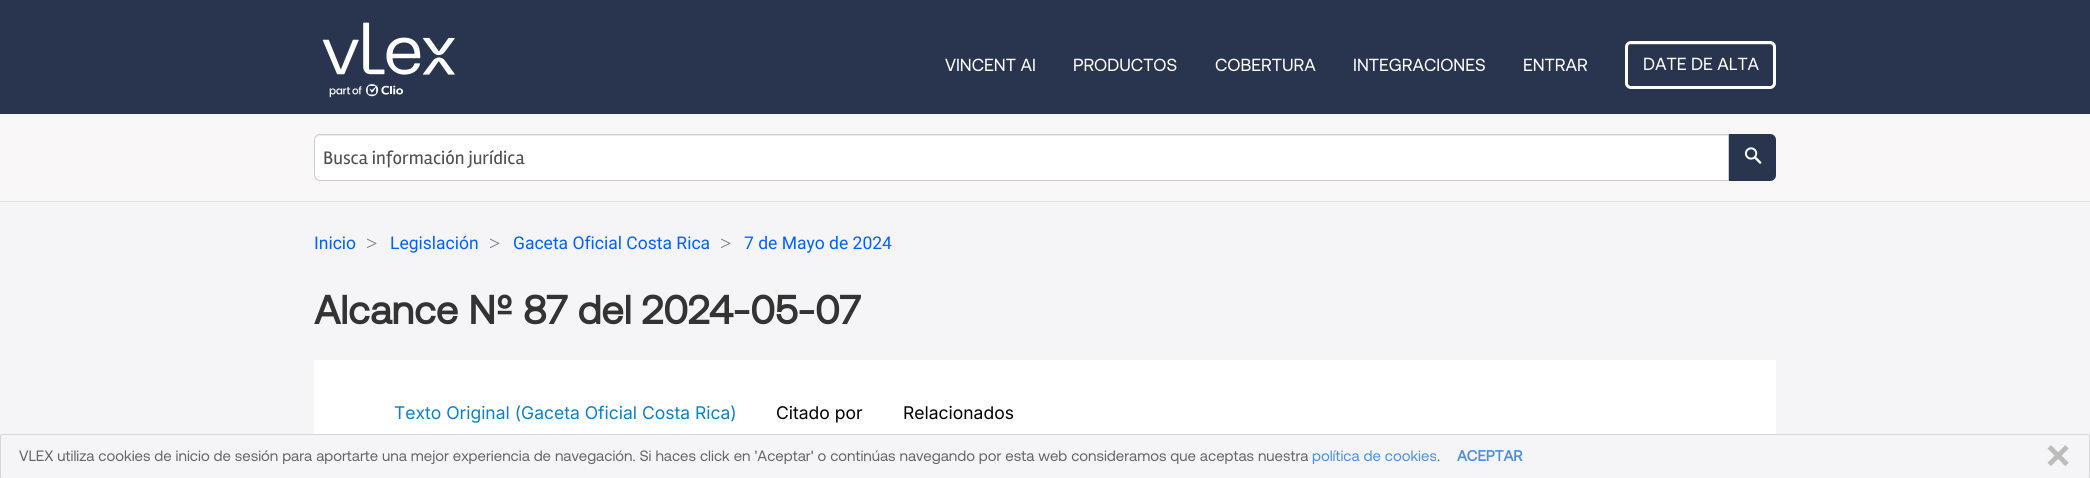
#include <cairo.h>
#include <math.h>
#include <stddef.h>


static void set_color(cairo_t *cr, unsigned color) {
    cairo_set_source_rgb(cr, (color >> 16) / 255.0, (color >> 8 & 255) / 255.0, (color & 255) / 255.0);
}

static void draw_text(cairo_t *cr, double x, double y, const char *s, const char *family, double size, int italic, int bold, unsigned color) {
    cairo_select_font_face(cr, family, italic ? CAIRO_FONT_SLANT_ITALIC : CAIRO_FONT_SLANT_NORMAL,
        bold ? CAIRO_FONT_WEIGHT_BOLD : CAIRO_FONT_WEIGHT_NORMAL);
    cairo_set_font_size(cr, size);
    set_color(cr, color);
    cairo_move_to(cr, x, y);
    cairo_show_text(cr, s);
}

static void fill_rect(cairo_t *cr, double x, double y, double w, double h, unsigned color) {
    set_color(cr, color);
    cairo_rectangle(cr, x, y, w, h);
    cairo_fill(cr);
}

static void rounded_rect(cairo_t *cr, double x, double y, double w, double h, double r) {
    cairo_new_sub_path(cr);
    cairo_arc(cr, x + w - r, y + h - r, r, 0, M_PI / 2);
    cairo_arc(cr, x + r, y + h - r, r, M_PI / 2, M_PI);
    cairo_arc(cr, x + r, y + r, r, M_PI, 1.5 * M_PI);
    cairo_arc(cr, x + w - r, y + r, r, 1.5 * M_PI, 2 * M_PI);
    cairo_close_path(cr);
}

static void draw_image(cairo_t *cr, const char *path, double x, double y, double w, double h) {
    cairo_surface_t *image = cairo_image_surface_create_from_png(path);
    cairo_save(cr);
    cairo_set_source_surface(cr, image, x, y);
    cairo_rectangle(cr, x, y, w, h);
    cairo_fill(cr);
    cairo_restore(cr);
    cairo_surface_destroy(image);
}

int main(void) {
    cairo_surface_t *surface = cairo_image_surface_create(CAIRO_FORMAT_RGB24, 2090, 478);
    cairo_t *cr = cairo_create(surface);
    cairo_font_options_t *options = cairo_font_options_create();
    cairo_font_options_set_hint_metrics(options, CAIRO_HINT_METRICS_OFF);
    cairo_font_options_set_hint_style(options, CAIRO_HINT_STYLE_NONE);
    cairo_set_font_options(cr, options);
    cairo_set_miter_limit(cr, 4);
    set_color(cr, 0xF5F5F7);
    cairo_paint(cr);
    fill_rect(cr, 0, 0, 2090, 114, 0x29354E);
    draw_image(cr, "assets/img1.png", 322, 22, 133, 76);
    draw_text(cr, 945, 71, "VINCENT AI", "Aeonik", 17.5, 0, 0, 0xFFFFFF);
    draw_text(cr, 1073, 71, "PRODUCTOS", "Aeonik", 17.5, 0, 0, 0xFFFFFF);
    draw_text(cr, 1215, 71, "COBERTURA", "Aeonik", 17.5, 0, 0, 0xFFFFFF);
    draw_text(cr, 1353, 71, "INTEGRACIONES", "Aeonik", 17.5, 0, 0, 0xFFFFFF);
    draw_text(cr, 1523, 71, "ENTRAR", "Aeonik", 17.5, 0, 0, 0xFFFFFF);
    set_color(cr, 0x545D71);
    cairo_new_path(cr);
    cairo_move_to(cr, 1631, 45);
    cairo_line_to(cr, 1770, 45);
    cairo_curve_to(cr, 1772, 45, 1774, 47, 1774, 49);
    cairo_line_to(cr, 1774, 48);
    cairo_curve_to(cr, 1774, 46, 1772, 44, 1770, 44);
    cairo_line_to(cr, 1632, 44);
    cairo_curve_to(cr, 1630, 44, 1628, 46, 1628, 48);
    cairo_line_to(cr, 1628, 49);
    cairo_curve_to(cr, 1628, 47, 1629, 45, 1631, 45);
    cairo_close_path(cr);
    cairo_fill(cr);
    rounded_rect(cr, 1626.5, 42.5, 148, 45, 4.5);
    set_color(cr, 0xFFFFFF);
    cairo_set_line_width(cr, 3);
    cairo_stroke(cr);
    draw_text(cr, 1643, 70, "DATE DE ALTA", "Aeonik", 17.5, 0, 0, 0xFFFFFF);
    fill_rect(cr, 0, 114, 2090, 89, 0xF9F7F7);
    fill_rect(cr, 0, 201, 2090, 1, 0xE1E1E1);
    set_color(cr, 0xFFFFFF);
    cairo_new_path(cr);
    cairo_move_to(cr, 320, 134);
    cairo_line_to(cr, 1729, 134);
    cairo_line_to(cr, 1729, 181);
    cairo_line_to(cr, 320, 181);
    cairo_curve_to(cr, 316.5, 181, 314, 178.5, 314, 175);
    cairo_line_to(cr, 314, 140);
    cairo_curve_to(cr, 314, 136.5, 316.5, 134, 320, 134);
    cairo_close_path(cr);
    cairo_fill(cr);
    set_color(cr, 0xECECEC);
    cairo_new_path(cr);
    cairo_move_to(cr, 320, 136);
    cairo_line_to(cr, 1728, 136);
    cairo_line_to(cr, 1728, 135);
    cairo_line_to(cr, 320, 135);
    cairo_curve_to(cr, 317, 135, 315, 138, 315, 141);
    cairo_curve_to(cr, 315, 138, 317, 136, 320, 136);
    cairo_close_path(cr);
    cairo_fill(cr);
    cairo_new_path(cr);
    cairo_move_to(cr, 320, 134.5);
    cairo_line_to(cr, 1728.5, 134.5);
    cairo_line_to(cr, 1728.5, 180.5);
    cairo_line_to(cr, 320, 180.5);
    cairo_curve_to(cr, 317, 180.5, 314.5, 178, 314.5, 175);
    cairo_line_to(cr, 314.5, 140);
    cairo_curve_to(cr, 314.5, 137, 317, 134.5, 320, 134.5);
    cairo_close_path(cr);
    set_color(cr, 0xCCCCCC);
    cairo_set_line_width(cr, 1);
    cairo_stroke(cr);
    draw_text(cr, 323, 164, "Busca información jurídica", "Rambla", 18.75, 0, 0, 0x505050);
    set_color(cr, 0x29354E);
    cairo_new_path(cr);
    cairo_move_to(cr, 1729, 134);
    cairo_line_to(cr, 1770, 134);
    cairo_curve_to(cr, 1773.5, 134, 1776, 136.5, 1776, 140);
    cairo_line_to(cr, 1776, 175);
    cairo_curve_to(cr, 1776, 178.5, 1773.5, 181, 1770, 181);
    cairo_line_to(cr, 1729, 181);
    cairo_close_path(cr);
    cairo_fill(cr);
    draw_image(cr, "assets/img2.png", 1744, 147, 18, 17);
    draw_text(cr, 314, 249, "Inicio", "Roboto", 17.5, 0, 0, 0x0161FF);
    draw_text(cr, 366, 250, ">", "Liberation Serif", 20, 0, 0, 0x71717A);
    draw_text(cr, 390, 249, "Legislación", "Roboto", 17.5, 0, 0, 0x0161FF);
    draw_text(cr, 489, 250, ">", "Liberation Serif", 20, 0, 0, 0x71717A);
    draw_text(cr, 513, 249, "Gaceta Oficial Costa Rica", "Roboto", 17.5, 0, 0, 0x0161FF);
    draw_text(cr, 720, 250, ">", "Liberation Serif", 20, 0, 0, 0x71717A);
    draw_text(cr, 744, 249, "7 de Mayo de 2024", "Roboto", 17.5, 0, 0, 0x0161FF);
    draw_text(cr, 314, 324, "Alcance Nº 87 del 2024-05-07", "Aeonik", 40, 0, 1, 0x333333);
    fill_rect(cr, 314, 360, 1462, 74, 0xFFFFFF);
    draw_text(cr, 394, 419, "Texto Original (Gaceta Oficial Costa Rica)", "Inter", 17.5, 0, 0, 0x0882CF);
    draw_text(cr, 776, 419, "Citado por", "Inter", 17.5, 0, 0, 0x000000);
    draw_text(cr, 903, 419, "Relacionados", "Inter", 17.5, 0, 0, 0x000000);
    rounded_rect(cr, 0.5, 434.5, 2089, 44, 2);
    set_color(cr, 0xD5D5D5);
    cairo_stroke(cr);
    draw_text(cr, 19, 461, "VLEX utiliza cookies de inicio de sesión para aportarte una mejor experiencia de navegación. Si haces click en 'Aceptar' o continúas navegando por esta web consideramos que aceptas nuestra", "Aeonik", 15, 0, 0, 0x666666);
    draw_text(cr, 1312, 461, "política de cookies", "Aeonik", 15, 0, 0, 0x4A90E2);
    draw_text(cr, 1437, 461, ".", "Aeonik", 15, 0, 0, 0x666666);
    draw_text(cr, 1457, 461, "ACEPTAR", "Aeonik", 15, 0, 1, 0x4A90E2);
    draw_image(cr, "assets/img3.png", 2047, 445, 22, 21);
    cairo_surface_write_to_png(surface, "output.png");
    cairo_font_options_destroy(options);
    cairo_destroy(cr);
    cairo_surface_destroy(surface);
    return 0;
}
